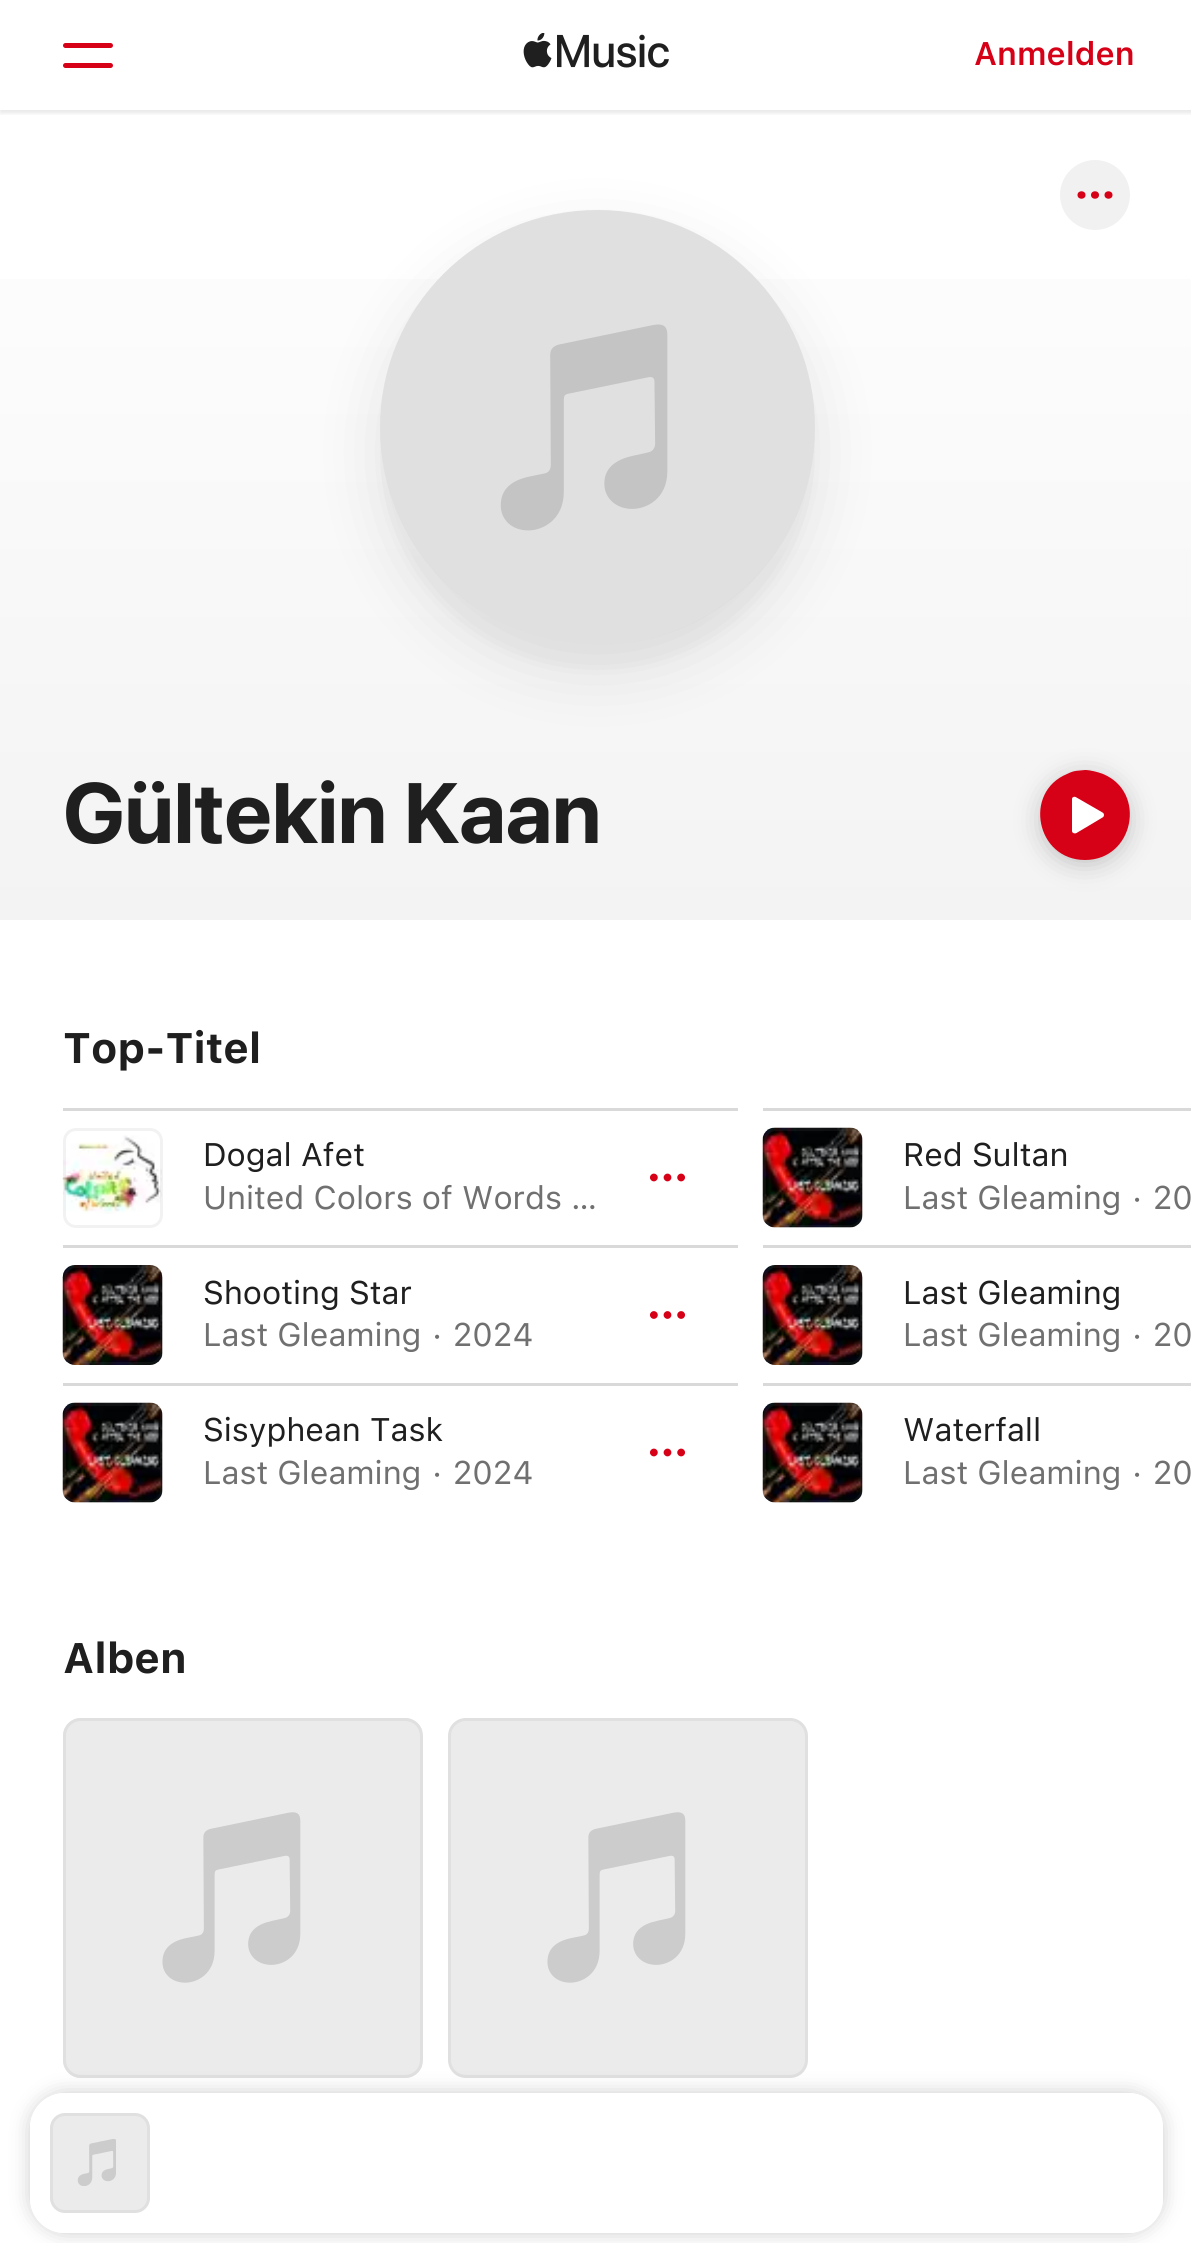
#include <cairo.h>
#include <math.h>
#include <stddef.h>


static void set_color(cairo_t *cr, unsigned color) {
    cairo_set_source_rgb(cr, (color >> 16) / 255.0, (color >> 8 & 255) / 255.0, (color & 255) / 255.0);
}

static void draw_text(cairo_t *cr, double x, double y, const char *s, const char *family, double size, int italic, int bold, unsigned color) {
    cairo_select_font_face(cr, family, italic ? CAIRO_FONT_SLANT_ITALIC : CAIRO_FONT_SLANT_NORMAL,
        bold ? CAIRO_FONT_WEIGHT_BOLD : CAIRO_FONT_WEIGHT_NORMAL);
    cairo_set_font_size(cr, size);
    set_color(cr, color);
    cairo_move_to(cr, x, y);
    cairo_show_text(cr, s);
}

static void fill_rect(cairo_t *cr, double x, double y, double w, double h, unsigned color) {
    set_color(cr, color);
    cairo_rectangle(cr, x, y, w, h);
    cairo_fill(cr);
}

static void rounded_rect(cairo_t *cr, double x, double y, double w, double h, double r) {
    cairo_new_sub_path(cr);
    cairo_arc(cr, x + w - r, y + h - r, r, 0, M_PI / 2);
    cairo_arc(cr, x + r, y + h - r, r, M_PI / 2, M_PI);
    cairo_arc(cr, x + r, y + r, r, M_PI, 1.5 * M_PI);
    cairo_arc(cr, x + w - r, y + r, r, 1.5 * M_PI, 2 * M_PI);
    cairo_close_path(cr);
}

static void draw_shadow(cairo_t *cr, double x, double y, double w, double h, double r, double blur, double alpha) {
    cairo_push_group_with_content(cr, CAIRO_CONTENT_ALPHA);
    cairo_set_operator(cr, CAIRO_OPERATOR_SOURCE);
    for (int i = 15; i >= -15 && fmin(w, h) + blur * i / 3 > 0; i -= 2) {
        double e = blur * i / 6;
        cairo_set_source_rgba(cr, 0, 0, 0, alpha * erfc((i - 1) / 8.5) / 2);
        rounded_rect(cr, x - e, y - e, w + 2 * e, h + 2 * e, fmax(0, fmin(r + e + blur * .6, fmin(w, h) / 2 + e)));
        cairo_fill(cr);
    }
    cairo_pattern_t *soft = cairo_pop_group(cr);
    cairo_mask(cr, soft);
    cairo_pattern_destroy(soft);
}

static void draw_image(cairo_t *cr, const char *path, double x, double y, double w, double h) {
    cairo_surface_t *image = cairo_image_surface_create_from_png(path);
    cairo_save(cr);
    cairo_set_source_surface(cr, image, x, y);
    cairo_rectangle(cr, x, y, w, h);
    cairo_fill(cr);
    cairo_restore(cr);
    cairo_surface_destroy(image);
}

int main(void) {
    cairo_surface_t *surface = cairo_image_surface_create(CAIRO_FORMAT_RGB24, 1191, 2243);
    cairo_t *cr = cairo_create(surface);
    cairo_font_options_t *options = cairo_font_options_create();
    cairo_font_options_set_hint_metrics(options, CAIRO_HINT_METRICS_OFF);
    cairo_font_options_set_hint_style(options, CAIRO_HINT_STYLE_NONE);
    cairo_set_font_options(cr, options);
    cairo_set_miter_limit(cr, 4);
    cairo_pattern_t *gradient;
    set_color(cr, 0xFFFFFF);
    cairo_paint(cr);
    cairo_save(cr);
    cairo_rectangle(cr, 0, 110, 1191, 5);
    cairo_clip(cr);
    set_color(cr, 0x000000);
    draw_shadow(cr, 0, 3, 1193, 110, 0, 2.5, 0.1);
    cairo_restore(cr);
    set_color(cr, 0xD60017);
    rounded_rect(cr, 63, 43, 50, 5, 2.5);
    cairo_fill(cr);
    rounded_rect(cr, 63, 63, 50, 5, 2.5);
    cairo_fill(cr);
    draw_image(cr, "assets/img1.png", 523, 33, 146, 35);
    draw_text(cr, 974, 65, "Anmelden", "SF SemiBold", 32.5, 0, 0, 0xD60017);
    gradient = cairo_pattern_create_linear(596, 110, 596, 920);
    cairo_pattern_add_color_stop_rgba(gradient, 0, 1, 1, 1, 1);
    cairo_pattern_add_color_stop_rgba(gradient, 1, 0.953, 0.953, 0.953, 1);
    cairo_set_source(cr, gradient);
    cairo_pattern_destroy(gradient);
    cairo_rectangle(cr, 0, 279, 1191, 641);
    cairo_fill(cr);
    set_color(cr, 0x000000);
    draw_shadow(cr, 380, 235, 435, 435, 217.5, 31, 0.1);
    draw_image(cr, "assets/img3.png", 381, 448, 433, 108);
    cairo_set_source_rgba(cr, 0.502, 0.502, 0.502, 0.04);
    cairo_new_path(cr);
    cairo_move_to(cr, 598, 235);
    cairo_curve_to(cr, 718, 235, 815, 332, 815, 452);
    cairo_curve_to(cr, 815, 573, 718, 670, 598, 670);
    cairo_curve_to(cr, 477, 670, 380, 573, 380, 452);
    cairo_curve_to(cr, 380, 332, 477, 235, 598, 235);
    cairo_close_path(cr);
    cairo_fill(cr);
    set_color(cr, 0xEBEBEB);
    cairo_arc(cr, 597.5, 427.5, 217.5, 0, 2 * M_PI);
    cairo_fill(cr);
    draw_image(cr, "assets/img2.png", 500, 324, 168, 207);
    cairo_set_source_rgba(cr, 0.502, 0.502, 0.502, 0.1);
    cairo_new_path(cr);
    cairo_move_to(cr, 598, 210);
    cairo_curve_to(cr, 718, 210, 815, 307, 815, 428);
    cairo_curve_to(cr, 815, 548, 718, 645, 598, 645);
    cairo_curve_to(cr, 477, 645, 380, 548, 380, 428);
    cairo_curve_to(cr, 380, 307, 477, 210, 598, 210);
    cairo_close_path(cr);
    cairo_fill(cr);
    set_color(cr, 0xF1F1F1);
    cairo_arc(cr, 1095, 195, 35, 0, 2 * M_PI);
    cairo_fill(cr);
    set_color(cr, 0xD60017);
    cairo_new_path(cr);
    cairo_move_to(cr, 1085.5, 195);
    cairo_curve_to(cr, 1085.5, 190, 1077.5, 190, 1077.5, 195);
    cairo_curve_to(cr, 1077.5, 200, 1085.5, 200, 1085.5, 195);
    cairo_close_path(cr);
    cairo_move_to(cr, 1099, 195);
    cairo_curve_to(cr, 1099, 190, 1091, 190, 1091, 195);
    cairo_curve_to(cr, 1091, 200, 1099, 200, 1099, 195);
    cairo_close_path(cr);
    cairo_move_to(cr, 1112.5, 195);
    cairo_curve_to(cr, 1112.5, 190, 1104.5, 190, 1104.5, 195);
    cairo_curve_to(cr, 1104.5, 200, 1112.5, 200, 1112.5, 195);
    cairo_close_path(cr);
    cairo_fill(cr);
    draw_text(cr, 63, 843, "Gültekin Kaan", "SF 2", 85, 0, 1, 0x1F1F1F);
    set_color(cr, 0x000000);
    draw_shadow(cr, 1040, 775, 90, 90, 45, 12.5, 0.2);
    set_color(cr, 0xD60017);
    cairo_new_path(cr);
    cairo_move_to(cr, 1085, 860);
    cairo_curve_to(cr, 1134, 860, 1147, 792, 1103, 774);
    cairo_curve_to(cr, 1098, 772, 1090, 770, 1085, 770);
    cairo_curve_to(cr, 1077, 771, 1075, 770, 1067, 774);
    cairo_curve_to(cr, 1023, 792, 1036, 860, 1085, 860);
    cairo_close_path(cr);
    cairo_fill(cr);
    set_color(cr, 0xFFFFFF);
    cairo_new_path(cr);
    cairo_move_to(cr, 1076.5, 833);
    cairo_curve_to(cr, 1074.5, 834, 1072, 833, 1072, 831);
    cairo_line_to(cr, 1072, 799);
    cairo_curve_to(cr, 1072, 797, 1074.5, 796, 1076.5, 797.5);
    cairo_line_to(cr, 1102.5, 812.5);
    cairo_curve_to(cr, 1103.5, 813, 1104, 814, 1104, 815);
    cairo_curve_to(cr, 1104, 816, 1103.5, 817, 1102.5, 817.5);
    cairo_close_path(cr);
    cairo_fill(cr);
    draw_text(cr, 63, 1063, "Top-Titel", "SF", 42.5, 0, 1, 0x1F1F1F);
    fill_rect(cr, 63, 1108, 675, 3, 0xD9D9D9);
    draw_image(cr, "assets/img4.png", 62, 1135, 100, 79);
    rounded_rect(cr, 64.5, 1129.5, 97, 97, 11.5);
    cairo_set_source_rgba(cr, 0.502, 0.502, 0.502, 0.1);
    cairo_set_line_width(cr, 3);
    cairo_stroke(cr);
    draw_text(cr, 203, 1166, "Dogal Afet", "SF", 32.5, 0, 0, 0x1F1F1F);
    draw_text(cr, 203, 1209, "United Colors of Words …", "SF", 32.5, 0, 0, 0x707070);
    draw_image(cr, "assets/img5.png", 650, 1173, 35, 9);
    fill_rect(cr, 763, 1108, 428, 3, 0xD9D9D9);
    draw_image(cr, "assets/img6.png", 762, 1127, 101, 101);
    rounded_rect(cr, 764.5, 1129.5, 97, 97, 11.5);
    cairo_set_source_rgba(cr, 0.502, 0.502, 0.502, 0.1);
    cairo_stroke(cr);
    draw_text(cr, 903, 1166, "Red Sultan", "SF", 32.5, 0, 0, 0x1F1F1F);
    draw_text(cr, 903, 1209, "Last Gleaming · 20", "SF", 32.5, 0, 0, 0x707070);
    fill_rect(cr, 63, 1245, 675, 3, 0xD9D9D9);
    draw_image(cr, "assets/img7.png", 62, 1265, 101, 100);
    rounded_rect(cr, 64.5, 1266.5, 97, 97, 11.5);
    cairo_set_source_rgba(cr, 0.502, 0.502, 0.502, 0.1);
    cairo_stroke(cr);
    draw_text(cr, 203, 1304, "Shooting Star", "SF", 32.5, 0, 0, 0x1F1F1F);
    draw_text(cr, 203, 1346, "Last Gleaming · 2024", "SF", 32.5, 0, 0, 0x707070);
    draw_image(cr, "assets/img8.png", 650, 1311, 35, 8);
    fill_rect(cr, 763, 1245, 428, 3, 0xD9D9D9);
    draw_image(cr, "assets/img9.png", 762, 1265, 101, 100);
    rounded_rect(cr, 764.5, 1266.5, 97, 97, 11.5);
    cairo_set_source_rgba(cr, 0.502, 0.502, 0.502, 0.1);
    cairo_stroke(cr);
    draw_text(cr, 903, 1304, "Last Gleaming", "SF", 32.5, 0, 0, 0x1F1F1F);
    draw_text(cr, 903, 1346, "Last Gleaming · 20", "SF", 32.5, 0, 0, 0x707070);
    fill_rect(cr, 63, 1383, 675, 3, 0xD9D9D9);
    draw_image(cr, "assets/img10.png", 62, 1402, 101, 101);
    rounded_rect(cr, 64.5, 1404.5, 97, 97, 11.5);
    cairo_set_source_rgba(cr, 0.502, 0.502, 0.502, 0.1);
    cairo_stroke(cr);
    draw_text(cr, 203, 1441, "Sisyphean Task", "SF", 32.5, 0, 0, 0x1F1F1F);
    draw_text(cr, 203, 1484, "Last Gleaming · 2024", "SF", 32.5, 0, 0, 0x707070);
    draw_image(cr, "assets/img5.png", 650, 1448, 35, 9);
    fill_rect(cr, 763, 1383, 428, 3, 0xD9D9D9);
    draw_image(cr, "assets/img6.png", 762, 1402, 101, 101);
    rounded_rect(cr, 764.5, 1404.5, 97, 97, 11.5);
    cairo_set_source_rgba(cr, 0.502, 0.502, 0.502, 0.1);
    cairo_stroke(cr);
    draw_text(cr, 903, 1441, "Waterfall", "SF", 32.5, 0, 0, 0x1F1F1F);
    draw_text(cr, 903, 1484, "Last Gleaming · 20", "SF", 32.5, 0, 0, 0x707070);
    draw_text(cr, 63, 1673, "Alben", "SF", 42.5, 0, 1, 0x1F1F1F);
    set_color(cr, 0xEBEBEB);
    rounded_rect(cr, 63, 1718, 360, 360, 18);
    cairo_fill(cr);
    draw_image(cr, "assets/img11.png", 63, 1718, 359, 360);
    rounded_rect(cr, 64.5, 1719.5, 357, 357, 16.5);
    cairo_set_source_rgba(cr, 0.502, 0.502, 0.502, 0.1);
    cairo_stroke(cr);
    set_color(cr, 0xEBEBEB);
    rounded_rect(cr, 448, 1718, 360, 360, 18);
    cairo_fill(cr);
    draw_image(cr, "assets/img12.png", 547, 1812, 139, 171);
    rounded_rect(cr, 449.5, 1719.5, 357, 357, 16.5);
    cairo_set_source_rgba(cr, 0.502, 0.502, 0.502, 0.1);
    cairo_stroke(cr);
    cairo_save(cr);
    cairo_set_fill_rule(cr, CAIRO_FILL_RULE_EVEN_ODD);
    cairo_new_path(cr);
    cairo_move_to(cr, 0, 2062);
    cairo_line_to(cr, 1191, 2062);
    cairo_line_to(cr, 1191, 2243);
    cairo_line_to(cr, 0, 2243);
    cairo_close_path(cr);
    cairo_move_to(cr, 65, 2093);
    cairo_line_to(cr, 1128, 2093);
    cairo_curve_to(cr, 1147.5, 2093, 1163, 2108.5, 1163, 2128);
    cairo_line_to(cr, 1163, 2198);
    cairo_curve_to(cr, 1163, 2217.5, 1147.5, 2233, 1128, 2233);
    cairo_line_to(cr, 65, 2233);
    cairo_curve_to(cr, 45.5, 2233, 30, 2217.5, 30, 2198);
    cairo_line_to(cr, 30, 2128);
    cairo_curve_to(cr, 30, 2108.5, 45.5, 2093, 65, 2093);
    cairo_close_path(cr);
    cairo_clip(cr);
    set_color(cr, 0x000000);
    draw_shadow(cr, 30, 2093, 1133, 140, 35, 10, 0.2);
    cairo_restore(cr);
    cairo_set_source_rgba(cr, 1, 1, 1, 0.9);
    rounded_rect(cr, 30, 2093, 1133, 140, 35);
    cairo_fill(cr);
    set_color(cr, 0xEBEBEB);
    rounded_rect(cr, 50, 2113, 100, 100, 15);
    cairo_fill(cr);
    draw_image(cr, "assets/img13.png", 77, 2139, 39, 47);
    rounded_rect(cr, 51.5, 2114.5, 97, 97, 13.5);
    cairo_set_source_rgba(cr, 0.502, 0.502, 0.502, 0.1);
    cairo_stroke(cr);
    cairo_surface_write_to_png(surface, "output.png");
    cairo_font_options_destroy(options);
    cairo_destroy(cr);
    cairo_surface_destroy(surface);
    return 0;
}
